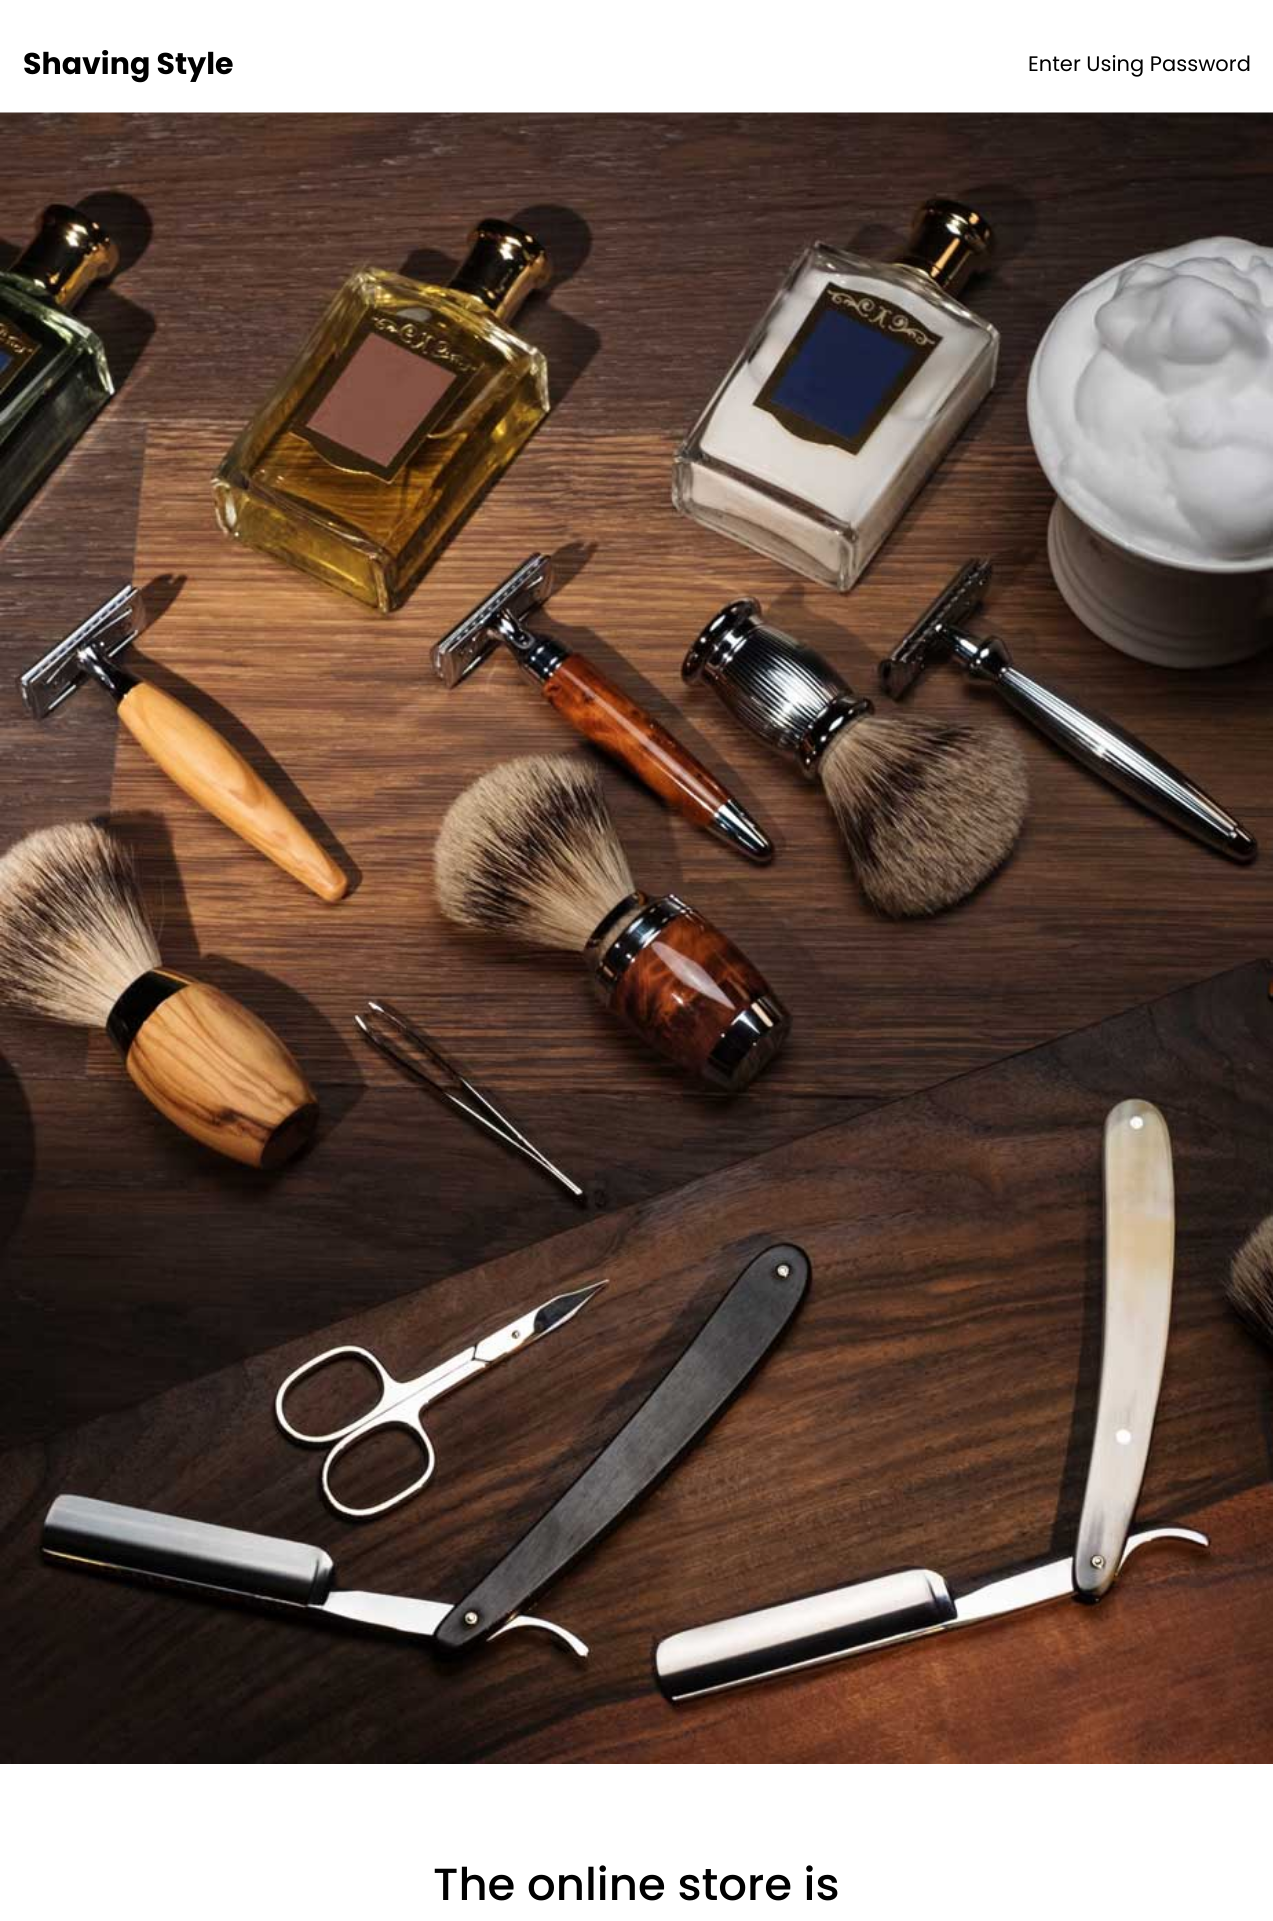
#include <cairo.h>
#include <math.h>
#include <stddef.h>


static void set_color(cairo_t *cr, unsigned color) {
    cairo_set_source_rgb(cr, (color >> 16) / 255.0, (color >> 8 & 255) / 255.0, (color & 255) / 255.0);
}

static void draw_text(cairo_t *cr, double x, double y, const char *s, const char *family, double size, int italic, int bold, unsigned color) {
    cairo_select_font_face(cr, family, italic ? CAIRO_FONT_SLANT_ITALIC : CAIRO_FONT_SLANT_NORMAL,
        bold ? CAIRO_FONT_WEIGHT_BOLD : CAIRO_FONT_WEIGHT_NORMAL);
    cairo_set_font_size(cr, size);
    set_color(cr, color);
    cairo_move_to(cr, x, y);
    cairo_show_text(cr, s);
}

static void draw_image(cairo_t *cr, const char *path, double x, double y, double w, double h) {
    cairo_surface_t *image = cairo_image_surface_create_from_png(path);
    cairo_save(cr);
    cairo_set_source_surface(cr, image, x, y);
    cairo_rectangle(cr, x, y, w, h);
    cairo_fill(cr);
    cairo_restore(cr);
    cairo_surface_destroy(image);
}

int main(void) {
    cairo_surface_t *surface = cairo_image_surface_create(CAIRO_FORMAT_RGB24, 1273, 1921);
    cairo_t *cr = cairo_create(surface);
    cairo_font_options_t *options = cairo_font_options_create();
    cairo_font_options_set_hint_metrics(options, CAIRO_HINT_METRICS_OFF);
    cairo_font_options_set_hint_style(options, CAIRO_HINT_STYLE_NONE);
    cairo_set_font_options(cr, options);
    cairo_set_miter_limit(cr, 4);
    set_color(cr, 0xFFFFFF);
    cairo_paint(cr);
    draw_text(cr, 23, 74, "Shaving Style", "Poppins", 30, 0, 1, 0x000000);
    draw_text(cr, 1028, 71, "Enter Using Password", "Poppins", 21, 0, 0, 0x000000);
    draw_image(cr, "assets/img1.png", 0, 112, 1273, 1652);
    draw_text(cr, 433, 1900, "The online store is", "Poppins Medium", 45, 0, 0, 0x000000);
    cairo_surface_write_to_png(surface, "output.png");
    cairo_font_options_destroy(options);
    cairo_destroy(cr);
    cairo_surface_destroy(surface);
    return 0;
}
